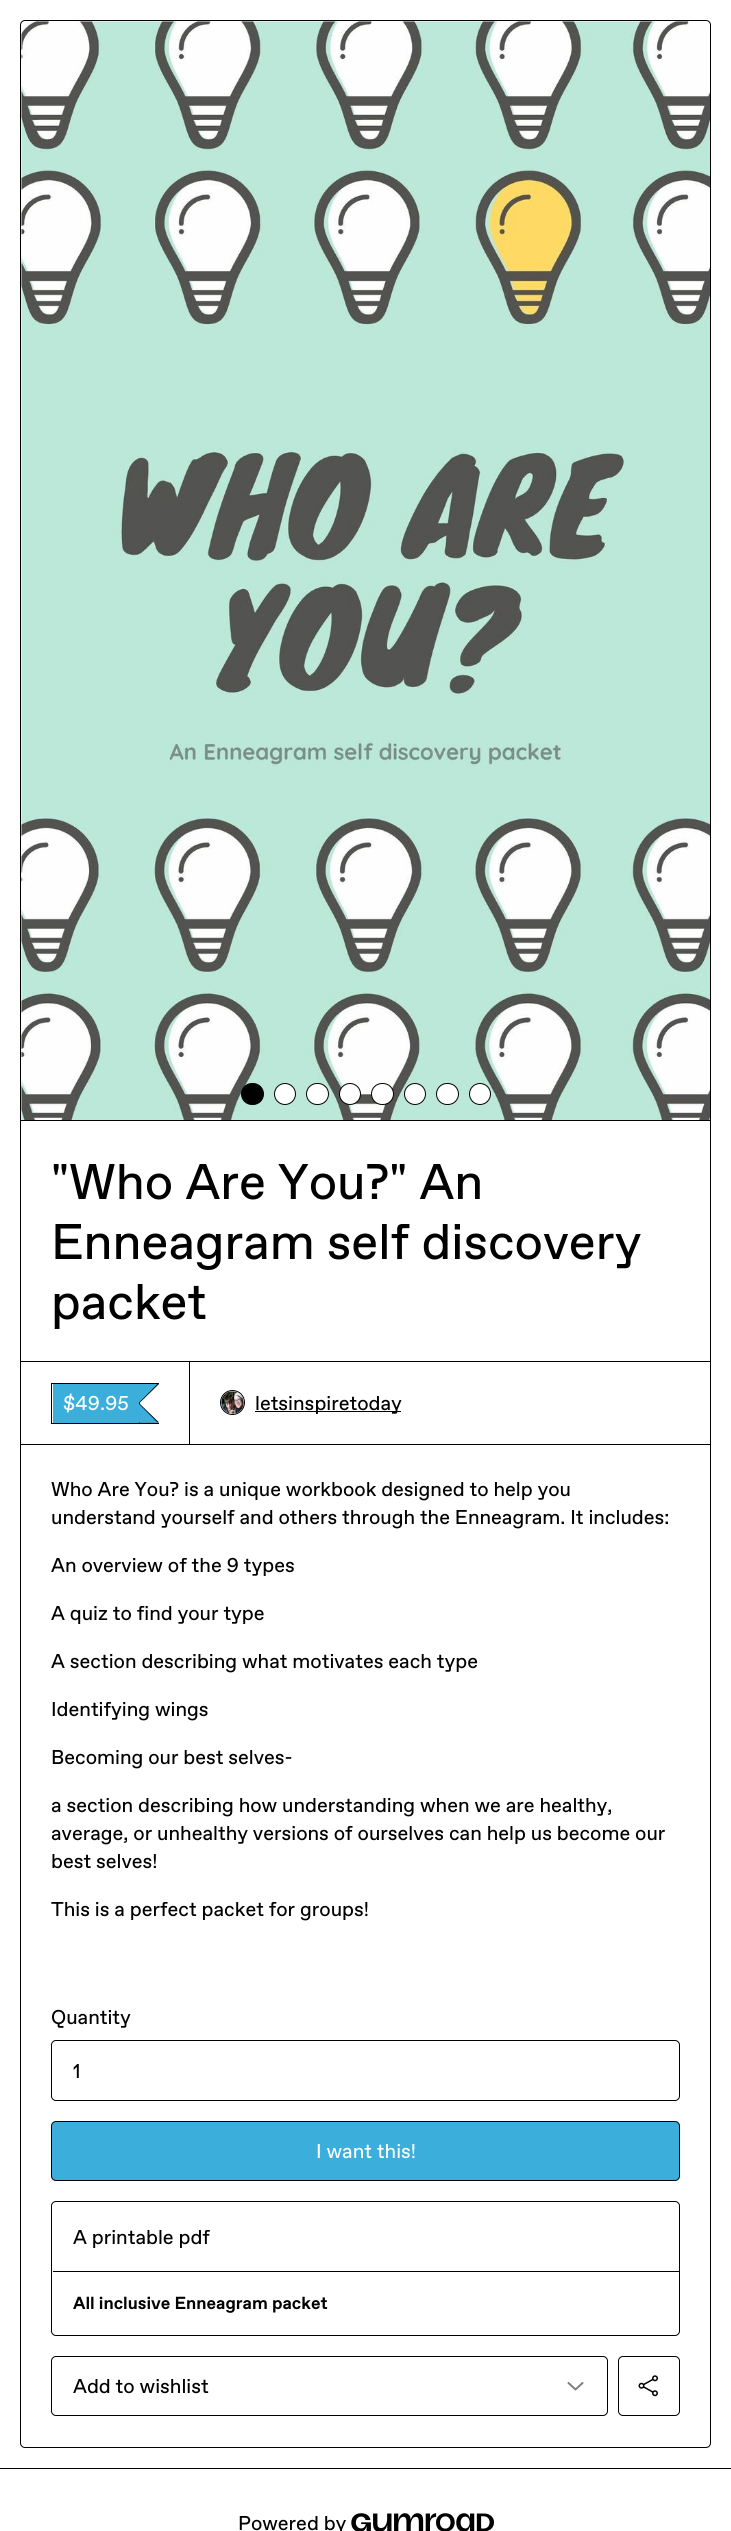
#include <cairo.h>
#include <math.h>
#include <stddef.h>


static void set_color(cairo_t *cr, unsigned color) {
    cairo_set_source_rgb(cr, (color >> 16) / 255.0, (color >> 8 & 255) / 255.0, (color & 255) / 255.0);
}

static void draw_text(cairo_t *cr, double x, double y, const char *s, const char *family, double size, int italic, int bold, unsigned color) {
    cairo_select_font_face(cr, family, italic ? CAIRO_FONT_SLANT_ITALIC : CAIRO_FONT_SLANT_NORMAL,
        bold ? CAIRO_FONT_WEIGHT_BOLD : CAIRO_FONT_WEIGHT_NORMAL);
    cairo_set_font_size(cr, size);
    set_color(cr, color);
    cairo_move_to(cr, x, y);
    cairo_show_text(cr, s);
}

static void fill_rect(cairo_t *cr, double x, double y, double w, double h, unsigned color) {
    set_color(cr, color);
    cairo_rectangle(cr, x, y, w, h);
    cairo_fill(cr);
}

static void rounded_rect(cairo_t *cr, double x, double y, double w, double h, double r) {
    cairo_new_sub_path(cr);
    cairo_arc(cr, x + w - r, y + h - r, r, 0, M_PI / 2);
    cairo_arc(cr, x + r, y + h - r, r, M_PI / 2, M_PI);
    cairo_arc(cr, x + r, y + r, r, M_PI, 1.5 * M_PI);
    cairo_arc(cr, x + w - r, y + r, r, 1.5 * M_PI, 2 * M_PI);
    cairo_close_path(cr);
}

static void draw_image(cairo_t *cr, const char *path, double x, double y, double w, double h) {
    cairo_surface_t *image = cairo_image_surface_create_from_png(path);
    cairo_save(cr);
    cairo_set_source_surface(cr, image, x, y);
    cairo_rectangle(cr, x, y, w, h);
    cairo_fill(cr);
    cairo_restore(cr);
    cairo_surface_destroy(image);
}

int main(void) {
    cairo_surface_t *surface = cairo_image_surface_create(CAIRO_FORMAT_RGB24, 731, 2531);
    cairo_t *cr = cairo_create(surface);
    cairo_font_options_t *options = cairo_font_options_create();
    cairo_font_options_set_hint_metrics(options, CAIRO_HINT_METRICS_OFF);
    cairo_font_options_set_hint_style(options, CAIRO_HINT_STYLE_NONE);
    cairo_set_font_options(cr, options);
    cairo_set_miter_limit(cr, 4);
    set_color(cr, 0xFFFFFF);
    cairo_paint(cr);
    fill_rect(cr, 0, 2468, 731, 1, 0x000000);
    rounded_rect(cr, 20.5, 20.5, 690, 2427, 4.5);
    cairo_set_line_width(cr, 1);
    cairo_stroke(cr);
    fill_rect(cr, 21, 1120, 689, 1, 0x000000);
    draw_image(cr, "assets/img1.png", 21, 21, 689, 1099);
    rounded_rect(cr, 241.5, 1083.5, 22, 21, 10.5);
    cairo_fill_preserve(cr);
    cairo_stroke(cr);
    set_color(cr, 0xFFFFFF);
    cairo_arc(cr, 285, 1094, 10.5, 0, 2 * M_PI);
    cairo_fill_preserve(cr);
    set_color(cr, 0x000000);
    cairo_stroke(cr);
    set_color(cr, 0xFFFFFF);
    rounded_rect(cr, 306.5, 1083.5, 22, 21, 10.5);
    cairo_fill_preserve(cr);
    set_color(cr, 0x000000);
    cairo_stroke(cr);
    set_color(cr, 0xFFFFFF);
    cairo_arc(cr, 350, 1094, 10.5, 0, 2 * M_PI);
    cairo_fill_preserve(cr);
    set_color(cr, 0x000000);
    cairo_stroke(cr);
    set_color(cr, 0xFFFFFF);
    rounded_rect(cr, 371.5, 1083.5, 22, 21, 10.5);
    cairo_fill_preserve(cr);
    set_color(cr, 0x000000);
    cairo_stroke(cr);
    set_color(cr, 0xFFFFFF);
    cairo_arc(cr, 415, 1094, 10.5, 0, 2 * M_PI);
    cairo_fill_preserve(cr);
    set_color(cr, 0x000000);
    cairo_stroke(cr);
    set_color(cr, 0xFFFFFF);
    rounded_rect(cr, 436.5, 1083.5, 22, 21, 10.5);
    cairo_fill_preserve(cr);
    set_color(cr, 0x000000);
    cairo_stroke(cr);
    set_color(cr, 0xFFFFFF);
    cairo_arc(cr, 480, 1094, 10.5, 0, 2 * M_PI);
    cairo_fill_preserve(cr);
    set_color(cr, 0x000000);
    cairo_stroke(cr);
    draw_text(cr, 51, 1199, "\"Who Are You?\" An", "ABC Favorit", 50, 0, 0, 0x000000);
    draw_text(cr, 51, 1259, "Enneagram self discovery", "ABC Favorit", 50, 0, 0, 0x000000);
    draw_text(cr, 51, 1319, "packet", "ABC Favorit", 50, 0, 0, 0x000000);
    fill_rect(cr, 190, 1361, 520, 1, 0x000000);
    cairo_rectangle(cr, 20.5, 1361.5, 169, 83);
    cairo_stroke(cr);
    fill_rect(cr, 51, 1383, 108, 1, 0x000000);
    fill_rect(cr, 51, 1423, 108, 1, 0x000000);
    fill_rect(cr, 51, 1383, 1, 41, 0x000000);
    fill_rect(cr, 53, 1384, 86, 39, 0x3BAEDB);
    set_color(cr, 0x000000);
    cairo_new_path(cr);
    cairo_move_to(cr, 139, 1384);
    cairo_line_to(cr, 159, 1384);
    cairo_line_to(cr, 140, 1402.5);
    cairo_close_path(cr);
    cairo_move_to(cr, 159, 1422.5);
    cairo_line_to(cr, 139, 1422.5);
    cairo_line_to(cr, 140, 1404);
    cairo_close_path(cr);
    cairo_fill(cr);
    fill_rect(cr, 139, 1401, 1, 22, 0x000000);
    set_color(cr, 0x3BAEDB);
    cairo_new_path(cr);
    cairo_move_to(cr, 137.5, 1384);
    cairo_line_to(cr, 157.5, 1384);
    cairo_line_to(cr, 139, 1402.5);
    cairo_close_path(cr);
    cairo_move_to(cr, 157.5, 1422.5);
    cairo_line_to(cr, 137.5, 1422.5);
    cairo_line_to(cr, 139, 1404);
    cairo_close_path(cr);
    cairo_fill(cr);
    draw_text(cr, 63, 1410, "$49.95", "ABC Favorit", 20, 0, 0, 0xFFFFFF);
    cairo_new_path(cr);
    cairo_arc(cr, 232.5, 1402.5, 12, 0, 2 * M_PI);
    set_color(cr, 0x000000);
    cairo_stroke(cr);
    draw_image(cr, "assets/img2.png", 221, 1391, 23, 23);
    fill_rect(cr, 255, 1411, 146, 1, 0x000000);
    draw_text(cr, 255, 1410, "letsinspiretoday", "ABC Favorit", 20, 0, 0, 0x000000);
    fill_rect(cr, 190, 1444, 520, 1, 0x000000);
    draw_text(cr, 51, 1496, "Who Are You? is a unique workbook designed to help you", "ABC Favorit", 20, 0, 0, 0x000000);
    draw_text(cr, 51, 1524, "understand yourself and others through the Enneagram. It includes:", "ABC Favorit", 20, 0, 0, 0x000000);
    draw_text(cr, 51, 1572, "An overview of the 9 types", "ABC Favorit", 20, 0, 0, 0x000000);
    draw_text(cr, 51, 1620, "A quiz to find your type", "ABC Favorit", 20, 0, 0, 0x000000);
    draw_text(cr, 51, 1668, "A section describing what motivates each type", "ABC Favorit", 20, 0, 0, 0x000000);
    draw_text(cr, 51, 1716, "Identifying wings", "ABC Favorit", 20, 0, 0, 0x000000);
    draw_text(cr, 51, 1764, "Becoming our best selves-", "ABC Favorit", 20, 0, 0, 0x000000);
    draw_text(cr, 51, 1812, "a section describing how understanding when we are healthy,", "ABC Favorit", 20, 0, 0, 0x000000);
    draw_text(cr, 51, 1840, "average, or unhealthy versions of ourselves can help us become our", "ABC Favorit", 20, 0, 0, 0x000000);
    draw_text(cr, 51, 1868, "best selves!", "ABC Favorit", 20, 0, 0, 0x000000);
    draw_text(cr, 51, 1916, "This is a perfect packet for groups!", "ABC Favorit", 20, 0, 0, 0x000000);
    draw_text(cr, 51, 2024, "Quantity", "ABC Favorit", 20, 0, 0, 0x000000);
    rounded_rect(cr, 51.5, 2040.5, 628, 60, 4.5);
    cairo_stroke(cr);
    draw_text(cr, 73, 2078, "1", "ABC Favorit", 20, 0, 0, 0x000000);
    set_color(cr, 0x3BAEDB);
    rounded_rect(cr, 51.5, 2121.5, 628, 59, 4.5);
    cairo_fill_preserve(cr);
    set_color(cr, 0x000000);
    cairo_stroke(cr);
    draw_text(cr, 316, 2158, "I want this!", "ABC Favorit", 20, 0, 0, 0xFFFFFF);
    rounded_rect(cr, 51.5, 2201.5, 628, 134, 4.5);
    set_color(cr, 0x000000);
    cairo_stroke(cr);
    fill_rect(cr, 53, 2271, 626, 1, 0x000000);
    draw_text(cr, 73, 2244, "A printable pdf", "ABC Favorit", 20, 0, 0, 0x000000);
    draw_text(cr, 73, 2309, "All inclusive Enneagram packet", "ABC Favorit", 17.5, 0, 1, 0x000000);
    rounded_rect(cr, 51.5, 2356.5, 556, 59, 4.5);
    cairo_stroke(cr);
    draw_text(cr, 73, 2393, "Add to wishlist", "ABC Favorit", 20, 0, 0, 0x000000);
    cairo_new_path(cr);
    cairo_move_to(cr, 582.5, 2383);
    cairo_line_to(cr, 575.5, 2389.5);
    cairo_line_to(cr, 568.5, 2383);
    set_color(cr, 0x808080);
    cairo_set_line_width(cr, 2);
    cairo_set_line_cap(cr, CAIRO_LINE_CAP_ROUND);
    cairo_set_line_join(cr, CAIRO_LINE_JOIN_ROUND);
    cairo_stroke(cr);
    rounded_rect(cr, 618.5, 2356.5, 61, 59, 4.5);
    set_color(cr, 0x000000);
    cairo_set_line_width(cr, 1);
    cairo_set_line_cap(cr, CAIRO_LINE_CAP_BUTT);
    cairo_set_line_join(cr, CAIRO_LINE_JOIN_MITER);
    cairo_stroke(cr);
    draw_image(cr, "assets/img3.png", 638, 2375, 20, 22);
    draw_text(cr, 238, 2530, "Powered by", "ABC Favorit", 20, 0, 0, 0x000000);
    draw_image(cr, "assets/img4.png", 351, 2513, 143, 18);
    cairo_surface_write_to_png(surface, "output.png");
    cairo_font_options_destroy(options);
    cairo_destroy(cr);
    cairo_surface_destroy(surface);
    return 0;
}
